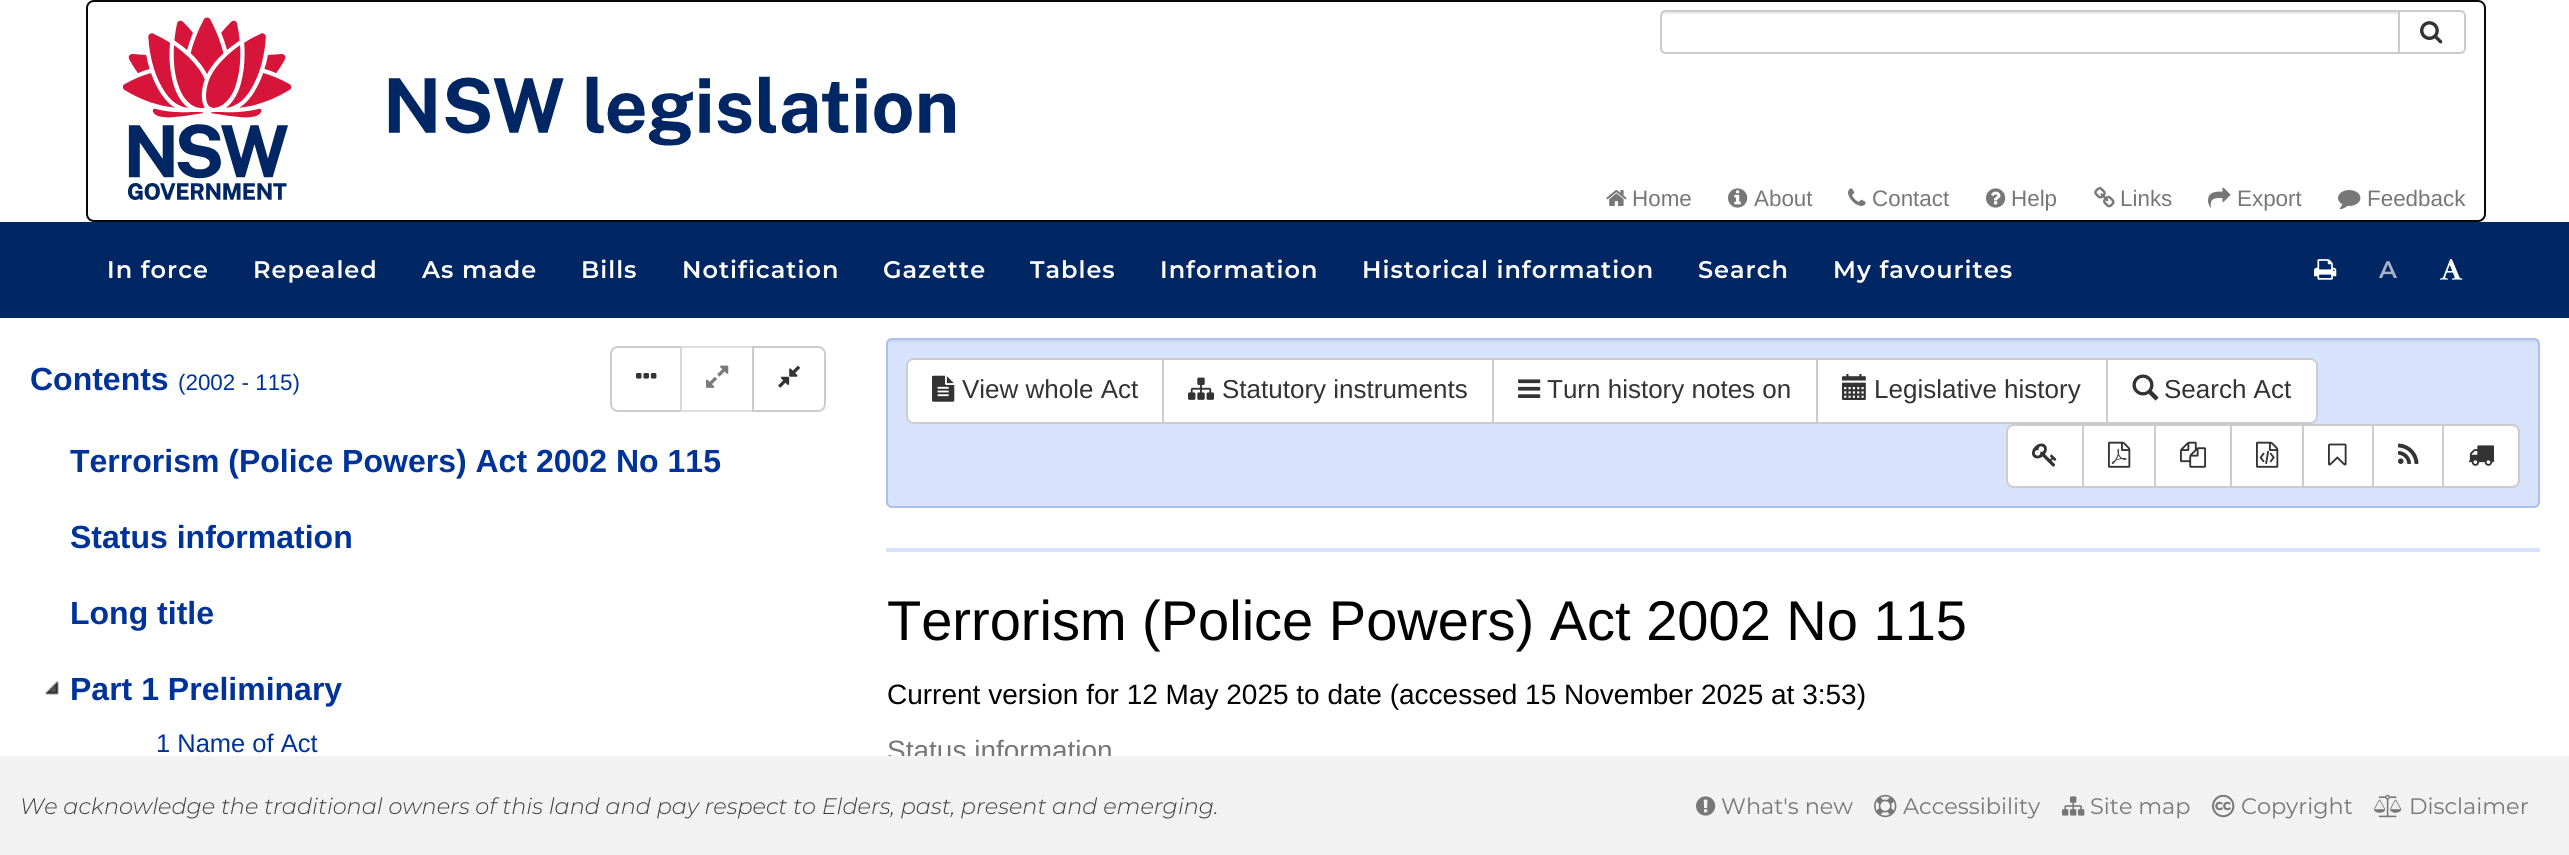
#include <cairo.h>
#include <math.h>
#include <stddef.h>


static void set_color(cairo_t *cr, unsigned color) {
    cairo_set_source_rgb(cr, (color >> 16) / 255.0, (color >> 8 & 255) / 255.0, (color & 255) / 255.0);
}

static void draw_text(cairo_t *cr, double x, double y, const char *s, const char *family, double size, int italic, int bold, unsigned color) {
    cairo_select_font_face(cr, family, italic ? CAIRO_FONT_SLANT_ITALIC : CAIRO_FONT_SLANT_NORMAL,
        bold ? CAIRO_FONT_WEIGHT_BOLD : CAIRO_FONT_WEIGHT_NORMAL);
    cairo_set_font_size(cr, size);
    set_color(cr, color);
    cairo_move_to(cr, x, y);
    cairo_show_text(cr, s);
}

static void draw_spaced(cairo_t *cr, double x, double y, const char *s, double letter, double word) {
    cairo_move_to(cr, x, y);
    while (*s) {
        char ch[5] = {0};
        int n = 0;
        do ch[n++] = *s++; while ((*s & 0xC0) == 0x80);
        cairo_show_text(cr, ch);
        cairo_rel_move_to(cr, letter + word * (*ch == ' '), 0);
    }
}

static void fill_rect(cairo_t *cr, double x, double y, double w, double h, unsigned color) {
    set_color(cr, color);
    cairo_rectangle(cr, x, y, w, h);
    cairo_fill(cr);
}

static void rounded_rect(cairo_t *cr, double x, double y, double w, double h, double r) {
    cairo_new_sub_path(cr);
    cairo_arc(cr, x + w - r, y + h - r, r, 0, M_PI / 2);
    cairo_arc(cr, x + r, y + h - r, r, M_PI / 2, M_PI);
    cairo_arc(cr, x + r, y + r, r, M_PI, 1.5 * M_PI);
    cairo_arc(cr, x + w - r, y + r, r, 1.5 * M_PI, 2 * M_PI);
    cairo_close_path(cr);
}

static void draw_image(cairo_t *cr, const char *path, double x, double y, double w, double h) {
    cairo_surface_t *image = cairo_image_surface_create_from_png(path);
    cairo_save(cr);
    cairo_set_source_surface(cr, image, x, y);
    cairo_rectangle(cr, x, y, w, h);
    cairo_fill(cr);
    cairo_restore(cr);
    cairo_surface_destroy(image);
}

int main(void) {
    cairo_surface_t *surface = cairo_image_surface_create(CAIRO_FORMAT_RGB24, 2569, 855);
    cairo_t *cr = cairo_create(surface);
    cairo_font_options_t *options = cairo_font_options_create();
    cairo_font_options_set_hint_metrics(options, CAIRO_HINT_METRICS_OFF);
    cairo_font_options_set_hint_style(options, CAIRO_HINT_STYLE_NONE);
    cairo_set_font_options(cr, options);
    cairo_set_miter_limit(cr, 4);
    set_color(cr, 0xFFFFFF);
    cairo_paint(cr);
    rounded_rect(cr, 87, 1, 2398, 220, 7);
    set_color(cr, 0x080808);
    cairo_stroke(cr);
    draw_image(cr, "assets/img1.png", 122, 17, 834, 183);
    cairo_new_path(cr);
    cairo_move_to(cr, 2399, 11);
    cairo_line_to(cr, 2460, 11);
    cairo_curve_to(cr, 2463, 11, 2465, 13, 2465, 16);
    cairo_line_to(cr, 2465, 48);
    cairo_curve_to(cr, 2465, 51, 2463, 53, 2460, 53);
    cairo_line_to(cr, 2399, 53);
    cairo_close_path(cr);
    set_color(cr, 0xCCCCCC);
    cairo_stroke(cr);
    set_color(cr, 0xFFFFFF);
    cairo_new_path(cr);
    cairo_move_to(cr, 1666, 10);
    cairo_line_to(cr, 2400, 10);
    cairo_line_to(cr, 2400, 54);
    cairo_line_to(cr, 1666, 54);
    cairo_curve_to(cr, 1662.5, 54, 1660, 51.5, 1660, 48);
    cairo_line_to(cr, 1660, 16);
    cairo_curve_to(cr, 1660, 12.5, 1662.5, 10, 1666, 10);
    cairo_close_path(cr);
    cairo_fill(cr);
    set_color(cr, 0xECECEC);
    cairo_new_path(cr);
    cairo_move_to(cr, 1666, 14);
    cairo_line_to(cr, 2398, 14);
    cairo_line_to(cr, 2398, 12);
    cairo_line_to(cr, 1666, 12);
    cairo_curve_to(cr, 1662, 12, 1662, 15, 1662, 18);
    cairo_curve_to(cr, 1662, 16, 1664, 14, 1666, 14);
    cairo_close_path(cr);
    cairo_fill(cr);
    cairo_new_path(cr);
    cairo_move_to(cr, 1666, 11);
    cairo_line_to(cr, 2399, 11);
    cairo_line_to(cr, 2399, 53);
    cairo_line_to(cr, 1666, 53);
    cairo_curve_to(cr, 1663, 53, 1661, 51, 1661, 48);
    cairo_line_to(cr, 1661, 16);
    cairo_curve_to(cr, 1661, 13, 1663, 11, 1666, 11);
    cairo_close_path(cr);
    set_color(cr, 0xCCCCCC);
    cairo_stroke(cr);
    draw_image(cr, "assets/img2.png", 2420, 21, 23, 23);
    draw_image(cr, "assets/img3.png", 1606, 190, 21, 16);
    draw_text(cr, 1632, 206, "Home", "Liberation Sans", 22.4, 0, 0, 0x777777);
    draw_image(cr, "assets/img4.png", 1728, 188, 20, 20);
    draw_text(cr, 1754, 206, "About", "Liberation Sans", 22.4, 0, 0, 0x777777);
    draw_image(cr, "assets/img5.png", 1848, 188, 18, 18);
    draw_text(cr, 1872, 206, "Contact", "Liberation Sans", 22.4, 0, 0, 0x777777);
    draw_image(cr, "assets/img6.png", 1986, 188, 20, 20);
    draw_text(cr, 2011, 206, "Help", "Liberation Sans", 22.4, 0, 0, 0x777777);
    draw_image(cr, "assets/img7.png", 2094, 187, 21, 21);
    draw_text(cr, 2120, 206, "Links", "Liberation Sans", 22.4, 0, 0, 0x777777);
    draw_image(cr, "assets/img8.png", 2208, 187, 23, 21);
    draw_text(cr, 2237, 206, "Export", "Liberation Sans", 22.4, 0, 0, 0x777777);
    draw_image(cr, "assets/img9.png", 2338, 190, 23, 20);
    draw_text(cr, 2367, 206, "Feedback", "Liberation Sans", 22.4, 0, 0, 0x777777);
    fill_rect(cr, 0, 222, 2569, 96, 0x002664);
    cairo_select_font_face(cr, "Montserrat SemiBold", CAIRO_FONT_SLANT_NORMAL, CAIRO_FONT_WEIGHT_NORMAL);
    cairo_set_font_size(cr, 24);
    set_color(cr, 0xFFFFFF);
    draw_spaced(cr, 107, 278, "In force", 1, 0);
    draw_spaced(cr, 253, 278, "Repealed", 1, 0);
    draw_spaced(cr, 422, 278, "As made", 1, 0);
    draw_spaced(cr, 581, 278, "Bills", 1, 0);
    draw_spaced(cr, 682, 278, "Notification", 1, 0);
    draw_spaced(cr, 883, 278, "Gazette", 1, 0);
    draw_spaced(cr, 1030, 278, "Tables", 1, 0);
    draw_spaced(cr, 1160, 278, "Information", 1, 0);
    draw_spaced(cr, 1362, 278, "Historical information", 1, 0);
    draw_spaced(cr, 1698, 278, "Search", 1, 0);
    draw_spaced(cr, 1833, 278, "My favourites", 1, 0);
    draw_image(cr, "assets/img10.png", 2314, 259, 23, 21);
    set_color(cr, 0xA6B3C9);
    draw_spaced(cr, 2379, 278, "A", 1, 0);
    draw_image(cr, "assets/img11.png", 2440, 259, 23, 21);
    draw_text(cr, 30, 390, "Contents", "Liberation Sans", 32, 0, 1, 0x003399);
    draw_text(cr, 178, 390, "(2002 - 115)", "Liberation Sans", 22.4, 0, 0, 0x003399);
    cairo_new_path(cr);
    cairo_move_to(cr, 618, 347);
    cairo_line_to(cr, 681, 347);
    cairo_line_to(cr, 681, 411);
    cairo_line_to(cr, 618, 411);
    cairo_curve_to(cr, 614, 411, 611, 408, 611, 404);
    cairo_line_to(cr, 611, 354);
    cairo_curve_to(cr, 611, 350, 614, 347, 618, 347);
    cairo_close_path(cr);
    set_color(cr, 0xCCCCCC);
    cairo_stroke(cr);
    draw_image(cr, "assets/img12.png", 636, 373, 21, 6);
    cairo_set_source_rgba(cr, 1, 1, 1, 0.65);
    cairo_rectangle(cr, 680, 346, 2, 66);
    cairo_fill(cr);
    cairo_rectangle(cr, 681, 347, 72, 64);
    cairo_set_source_rgba(cr, 0.8, 0.8, 0.8, 0.65);
    cairo_stroke(cr);
    draw_image(cr, "assets/img13.png", 706, 365, 23, 23);
    set_color(cr, 0xFFFFFF);
    cairo_new_path(cr);
    cairo_move_to(cr, 753, 347);
    cairo_line_to(cr, 818, 347);
    cairo_curve_to(cr, 822, 347, 825, 350, 825, 354);
    cairo_line_to(cr, 825, 404);
    cairo_curve_to(cr, 825, 408, 822, 411, 818, 411);
    cairo_line_to(cr, 753, 411);
    cairo_close_path(cr);
    cairo_fill_preserve(cr);
    set_color(cr, 0xCCCCCC);
    cairo_stroke(cr);
    draw_image(cr, "assets/img14.png", 778, 365, 22, 23);
    draw_text(cr, 70, 472, "Terrorism (Police Powers) Act 2002 No 115", "Liberation Sans", 32, 0, 1, 0x003399);
    draw_text(cr, 70, 548, "Status information", "Liberation Sans", 32, 0, 1, 0x003399);
    draw_text(cr, 70, 624, "Long title", "Liberation Sans", 32, 0, 1, 0x003399);
    draw_image(cr, "assets/img15.png", 45, 681, 14, 14);
    draw_text(cr, 70, 700, "Part 1 Preliminary", "Liberation Sans", 32, 0, 1, 0x003399);
    draw_text(cr, 156, 752, "1 Name of Act", "Liberation Sans", 25.5, 0, 0, 0x003399);
    set_color(cr, 0xD7E2FC);
    rounded_rect(cr, 886, 338, 1654, 170, 6);
    cairo_fill(cr);
    set_color(cr, 0xCCD7EF);
    cairo_new_path(cr);
    cairo_move_to(cr, 892, 342);
    cairo_line_to(cr, 2534, 342);
    cairo_curve_to(cr, 2536, 342, 2538, 344, 2538, 346);
    cairo_curve_to(cr, 2538, 343, 2538, 340, 2534, 340);
    cairo_line_to(cr, 892, 340);
    cairo_curve_to(cr, 888, 340, 888, 343, 888, 346);
    cairo_curve_to(cr, 888, 344, 890, 342, 892, 342);
    cairo_close_path(cr);
    cairo_fill(cr);
    rounded_rect(cr, 887, 339, 1652, 168, 5);
    set_color(cr, 0xAEBFE9);
    cairo_stroke(cr);
    set_color(cr, 0xFFFFFF);
    cairo_new_path(cr);
    cairo_move_to(cr, 914, 359);
    cairo_line_to(cr, 1163, 359);
    cairo_line_to(cr, 1163, 423);
    cairo_line_to(cr, 914, 423);
    cairo_curve_to(cr, 910, 423, 907, 420, 907, 416);
    cairo_line_to(cr, 907, 366);
    cairo_curve_to(cr, 907, 362, 910, 359, 914, 359);
    cairo_close_path(cr);
    cairo_fill_preserve(cr);
    set_color(cr, 0xCCCCCC);
    cairo_stroke(cr);
    draw_image(cr, "assets/img16.png", 932, 375, 23, 27);
    draw_text(cr, 962, 398, "View whole Act", "Liberation Sans", 26, 0, 0, 0x333333);
    set_color(cr, 0xFFFFFF);
    cairo_rectangle(cr, 1163, 359, 330, 64);
    cairo_fill_preserve(cr);
    set_color(cr, 0xCCCCCC);
    cairo_stroke(cr);
    draw_image(cr, "assets/img17.png", 1188, 377, 26, 23);
    draw_text(cr, 1222, 398, "Statutory instruments", "Liberation Sans", 26, 0, 0, 0x333333);
    set_color(cr, 0xFFFFFF);
    cairo_rectangle(cr, 1493, 359, 324, 64);
    cairo_fill_preserve(cr);
    set_color(cr, 0xCCCCCC);
    cairo_stroke(cr);
    draw_image(cr, "assets/img18.png", 1518, 379, 23, 19);
    draw_text(cr, 1547, 398, "Turn history notes on", "Liberation Sans", 26, 0, 0, 0x333333);
    set_color(cr, 0xFFFFFF);
    cairo_rectangle(cr, 1817, 359, 290, 64);
    cairo_fill_preserve(cr);
    set_color(cr, 0xCCCCCC);
    cairo_stroke(cr);
    draw_image(cr, "assets/img19.png", 1842, 374, 24, 26);
    draw_text(cr, 1874, 398, "Legislative history", "Liberation Sans", 26, 0, 0, 0x333333);
    set_color(cr, 0xFFFFFF);
    cairo_new_path(cr);
    cairo_move_to(cr, 2107, 359);
    cairo_line_to(cr, 2310, 359);
    cairo_curve_to(cr, 2314, 359, 2317, 362, 2317, 366);
    cairo_line_to(cr, 2317, 416);
    cairo_curve_to(cr, 2317, 420, 2314, 423, 2310, 423);
    cairo_line_to(cr, 2107, 423);
    cairo_close_path(cr);
    cairo_fill_preserve(cr);
    set_color(cr, 0xCCCCCC);
    cairo_stroke(cr);
    draw_image(cr, "assets/img20.png", 2132, 374, 27, 27);
    draw_text(cr, 2164, 398, "Search Act", "Liberation Sans", 26, 0, 0, 0x333333);
    set_color(cr, 0xFFFFFF);
    cairo_new_path(cr);
    cairo_move_to(cr, 2014, 425);
    cairo_line_to(cr, 2083, 425);
    cairo_line_to(cr, 2083, 487);
    cairo_line_to(cr, 2014, 487);
    cairo_curve_to(cr, 2010, 487, 2007, 484, 2007, 480);
    cairo_line_to(cr, 2007, 432);
    cairo_curve_to(cr, 2007, 428, 2010, 425, 2014, 425);
    cairo_close_path(cr);
    cairo_fill_preserve(cr);
    set_color(cr, 0xCCCCCC);
    cairo_stroke(cr);
    draw_image(cr, "assets/img21.png", 2032, 443, 25, 24);
    set_color(cr, 0xFFFFFF);
    cairo_rectangle(cr, 2083, 425, 72, 62);
    cairo_fill_preserve(cr);
    set_color(cr, 0xCCCCCC);
    cairo_stroke(cr);
    draw_image(cr, "assets/img22.png", 2108, 441, 23, 27);
    set_color(cr, 0xFFFFFF);
    cairo_rectangle(cr, 2155, 425, 76, 62);
    cairo_fill_preserve(cr);
    set_color(cr, 0xCCCCCC);
    cairo_stroke(cr);
    draw_image(cr, "assets/img23.png", 2180, 441, 26, 27);
    set_color(cr, 0xFFFFFF);
    cairo_rectangle(cr, 2231, 425, 72, 62);
    cairo_fill_preserve(cr);
    set_color(cr, 0xCCCCCC);
    cairo_stroke(cr);
    draw_image(cr, "assets/img24.png", 2256, 441, 23, 27);
    set_color(cr, 0xFFFFFF);
    cairo_rectangle(cr, 2303, 425, 70, 62);
    cairo_fill_preserve(cr);
    set_color(cr, 0xCCCCCC);
    cairo_stroke(cr);
    draw_image(cr, "assets/img25.png", 2328, 443, 19, 23);
    set_color(cr, 0xFFFFFF);
    cairo_rectangle(cr, 2373, 425, 70, 62);
    cairo_fill_preserve(cr);
    set_color(cr, 0xCCCCCC);
    cairo_stroke(cr);
    draw_image(cr, "assets/img26.png", 2398, 443, 21, 21);
    set_color(cr, 0xFFFFFF);
    cairo_new_path(cr);
    cairo_move_to(cr, 2443, 425);
    cairo_line_to(cr, 2512, 425);
    cairo_curve_to(cr, 2516, 425, 2519, 428, 2519, 432);
    cairo_line_to(cr, 2519, 480);
    cairo_curve_to(cr, 2519, 484, 2516, 487, 2512, 487);
    cairo_line_to(cr, 2443, 487);
    cairo_close_path(cr);
    cairo_fill_preserve(cr);
    set_color(cr, 0xCCCCCC);
    cairo_stroke(cr);
    draw_image(cr, "assets/img27.png", 2468, 445, 26, 21);
    fill_rect(cr, 886, 548, 1654, 4, 0xD7E2FC);
    draw_text(cr, 887, 640, "Terrorism (Police Powers) Act 2002 No 115", "Liberation Sans", 56, 0, 0, 0x000000);
    draw_text(cr, 887, 704, "Current version for 12 May 2025 to date (accessed 15 November 2025 at 3:53)", "Liberation Sans", 28, 0, 0, 0x000000);
    cairo_save(cr);
    cairo_rectangle(cr, 856, 318, 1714, 438);
    cairo_clip(cr);
    draw_text(cr, 887, 760, "Status information", "Liberation Sans", 28, 0, 0, 0x777777);
    cairo_restore(cr);
    fill_rect(cr, 0, 756, 2569, 99, 0xF2F2F2);
    draw_text(cr, 20, 814, "We acknowledge the traditional owners of this land and pay respect to Elders, past, present and emerging.", "Montserrat Light", 22.4, 1, 0, 0x3D3D3D);
    draw_image(cr, "assets/img28.png", 1696, 796, 20, 20);
    draw_text(cr, 1721, 814, "What's new", "Montserrat", 22.4, 0, 0, 0x777777);
    draw_image(cr, "assets/img29.png", 1874, 794, 23, 24);
    draw_text(cr, 1903, 814, "Accessibility", "Montserrat", 22.4, 0, 0, 0x777777);
    draw_image(cr, "assets/img30.png", 2062, 796, 23, 20);
    draw_text(cr, 2090, 814, "Site map", "Montserrat", 22.4, 0, 0, 0x777777);
    draw_image(cr, "assets/img31.png", 2212, 794, 23, 24);
    draw_text(cr, 2241, 814, "Copyright", "Montserrat", 22.4, 0, 0, 0x777777);
    draw_image(cr, "assets/img32.png", 2374, 794, 28, 24);
    draw_text(cr, 2409, 814, "Disclaimer", "Montserrat", 22.4, 0, 0, 0x777777);
    cairo_surface_write_to_png(surface, "output.png");
    cairo_font_options_destroy(options);
    cairo_destroy(cr);
    cairo_surface_destroy(surface);
    return 0;
}
